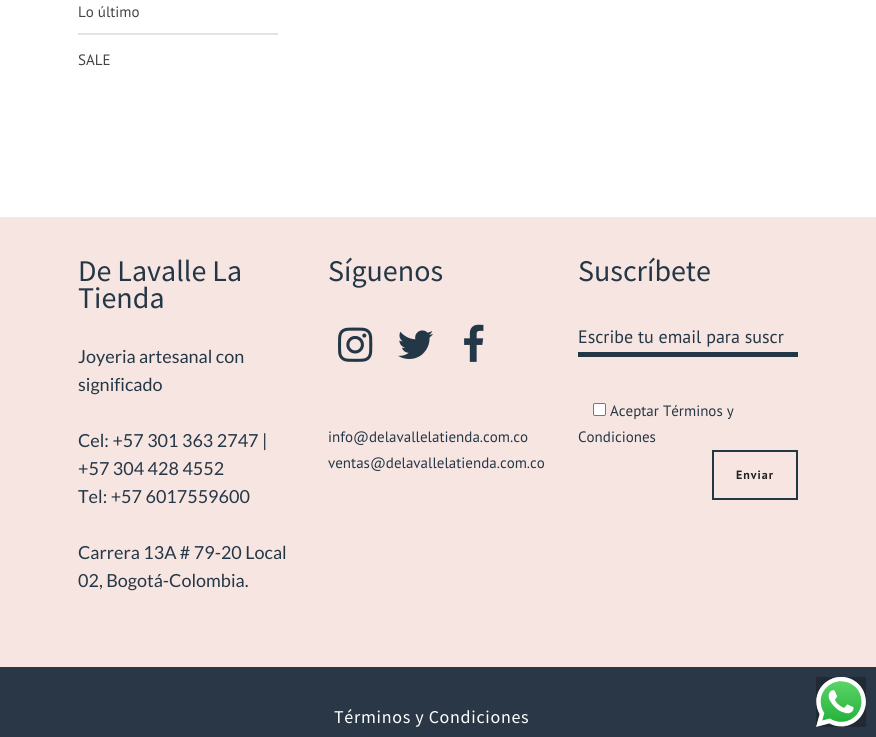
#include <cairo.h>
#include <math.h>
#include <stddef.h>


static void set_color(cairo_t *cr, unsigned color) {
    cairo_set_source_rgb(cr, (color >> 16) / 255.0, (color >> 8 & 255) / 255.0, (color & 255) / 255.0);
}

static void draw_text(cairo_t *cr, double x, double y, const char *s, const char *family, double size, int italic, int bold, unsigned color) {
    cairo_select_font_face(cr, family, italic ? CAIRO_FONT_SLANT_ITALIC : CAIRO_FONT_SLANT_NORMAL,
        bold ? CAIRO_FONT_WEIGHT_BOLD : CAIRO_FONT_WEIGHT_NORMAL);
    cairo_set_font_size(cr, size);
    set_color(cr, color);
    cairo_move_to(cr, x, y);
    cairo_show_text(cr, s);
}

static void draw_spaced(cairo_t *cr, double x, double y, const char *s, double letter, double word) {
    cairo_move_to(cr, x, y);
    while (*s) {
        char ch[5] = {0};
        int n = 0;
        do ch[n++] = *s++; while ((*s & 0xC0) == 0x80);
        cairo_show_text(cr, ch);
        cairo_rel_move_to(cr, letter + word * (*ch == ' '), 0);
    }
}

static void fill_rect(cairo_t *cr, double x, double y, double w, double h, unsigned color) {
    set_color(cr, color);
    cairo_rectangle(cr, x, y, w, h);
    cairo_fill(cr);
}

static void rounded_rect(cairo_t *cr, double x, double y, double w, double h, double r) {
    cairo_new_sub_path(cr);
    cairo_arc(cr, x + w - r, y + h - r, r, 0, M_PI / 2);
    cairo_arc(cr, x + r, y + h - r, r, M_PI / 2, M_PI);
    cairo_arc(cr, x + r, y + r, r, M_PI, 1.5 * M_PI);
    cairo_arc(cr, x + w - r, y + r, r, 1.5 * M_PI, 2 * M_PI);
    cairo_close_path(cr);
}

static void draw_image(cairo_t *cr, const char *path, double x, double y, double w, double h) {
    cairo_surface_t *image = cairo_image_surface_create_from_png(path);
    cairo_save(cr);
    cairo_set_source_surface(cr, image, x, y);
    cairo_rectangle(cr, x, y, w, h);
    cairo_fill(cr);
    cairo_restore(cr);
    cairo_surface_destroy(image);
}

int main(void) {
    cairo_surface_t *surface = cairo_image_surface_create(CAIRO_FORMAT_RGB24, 876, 737);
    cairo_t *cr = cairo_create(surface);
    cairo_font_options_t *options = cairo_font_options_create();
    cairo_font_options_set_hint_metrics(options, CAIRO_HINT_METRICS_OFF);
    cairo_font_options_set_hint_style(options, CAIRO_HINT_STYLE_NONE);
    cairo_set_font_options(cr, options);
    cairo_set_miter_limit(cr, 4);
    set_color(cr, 0xFFFFFF);
    cairo_paint(cr);
    draw_text(cr, 78, 17, "Lo último", "PT Sans", 15, 0, 0, 0x444444);
    fill_rect(cr, 78, 33, 200, 2, 0xE4E4E4);
    draw_text(cr, 78, 65, "SALE", "PT Sans", 15, 0, 0, 0x444444);
    fill_rect(cr, 0, 217, 876, 450, 0xF7E5E1);
    draw_text(cr, 78, 281, "De Lavalle La", "Source Sans Pro", 30, 0, 0, 0x243746);
    draw_text(cr, 78, 308, "Tienda", "Source Sans Pro", 30, 0, 0, 0x243746);
    draw_text(cr, 78, 363, "Joyeria artesanal con", "Lato", 18, 0, 0, 0x243746);
    draw_text(cr, 78, 391, "significado", "Lato", 18, 0, 0, 0x243746);
    draw_text(cr, 78, 447, "Cel: +57 301 363 2747 |", "Lato", 18, 0, 0, 0x243746);
    draw_text(cr, 78, 475, "+57 304 428 4552", "Lato", 18, 0, 0, 0x243746);
    draw_text(cr, 78, 503, "Tel: +57 6017559600", "Lato", 18, 0, 0, 0x243746);
    draw_text(cr, 78, 559, "Carrera 13A # 79-20 Local", "Lato", 18, 0, 0, 0x243746);
    draw_text(cr, 78, 587, "02, Bogotá-Colombia.", "Lato", 18, 0, 0, 0x243746);
    draw_text(cr, 328, 281, "Síguenos", "Source Sans Pro", 30, 0, 0, 0x243746);
    draw_image(cr, "assets/img1.png", 338, 327, 35, 35);
    draw_image(cr, "assets/img2.png", 398, 330, 35, 29);
    draw_image(cr, "assets/img3.png", 464, 324, 20, 38);
    draw_text(cr, 328, 442, "info@delavallelatienda.com.co", "PT Sans", 15, 0, 0, 0x243746);
    draw_text(cr, 328, 468, "ventas@delavallelatienda.com.co", "PT Sans", 15, 0, 0, 0x243746);
    draw_text(cr, 578, 281, "Suscríbete", "Source Sans Pro", 30, 0, 0, 0x243746);
    fill_rect(cr, 578, 352, 220, 5, 0x243746);
    draw_text(cr, 578, 343, "Escribe tu email para suscr", "PT Sans", 18, 0, 0, 0x243746);
    set_color(cr, 0xFFFFFF);
    rounded_rect(cr, 593.5, 403.5, 12, 12, 1.5);
    cairo_fill_preserve(cr);
    set_color(cr, 0x767676);
    cairo_set_line_width(cr, 1);
    cairo_stroke(cr);
    draw_text(cr, 610, 416, "Aceptar Términos y", "PT Sans", 15, 0, 0, 0x243746);
    draw_text(cr, 578, 442, "Condiciones", "PT Sans", 15, 0, 0, 0x243746);
    cairo_rectangle(cr, 713, 451, 84, 48);
    cairo_set_line_width(cr, 2);
    cairo_stroke(cr);
    cairo_select_font_face(cr, "PT Sans", CAIRO_FONT_SLANT_NORMAL, CAIRO_FONT_WEIGHT_BOLD);
    cairo_set_font_size(cr, 12);
    set_color(cr, 0x222222);
    draw_spaced(cr, 736, 479, "Enviar", 1, 0);
    fill_rect(cr, 0, 667, 876, 70, 0x293746);
    cairo_select_font_face(cr, "Source Sans Pro", CAIRO_FONT_SLANT_NORMAL, CAIRO_FONT_WEIGHT_NORMAL);
    cairo_set_font_size(cr, 18);
    set_color(cr, 0xFFFFFF);
    draw_spaced(cr, 334, 723, "Términos y Condiciones", 0.7, 0);
    fill_rect(cr, 816, 677, 50, 50, 0x212932);
    draw_image(cr, "assets/img4.png", 816, 677, 50, 50);
    cairo_surface_write_to_png(surface, "output.png");
    cairo_font_options_destroy(options);
    cairo_destroy(cr);
    cairo_surface_destroy(surface);
    return 0;
}
